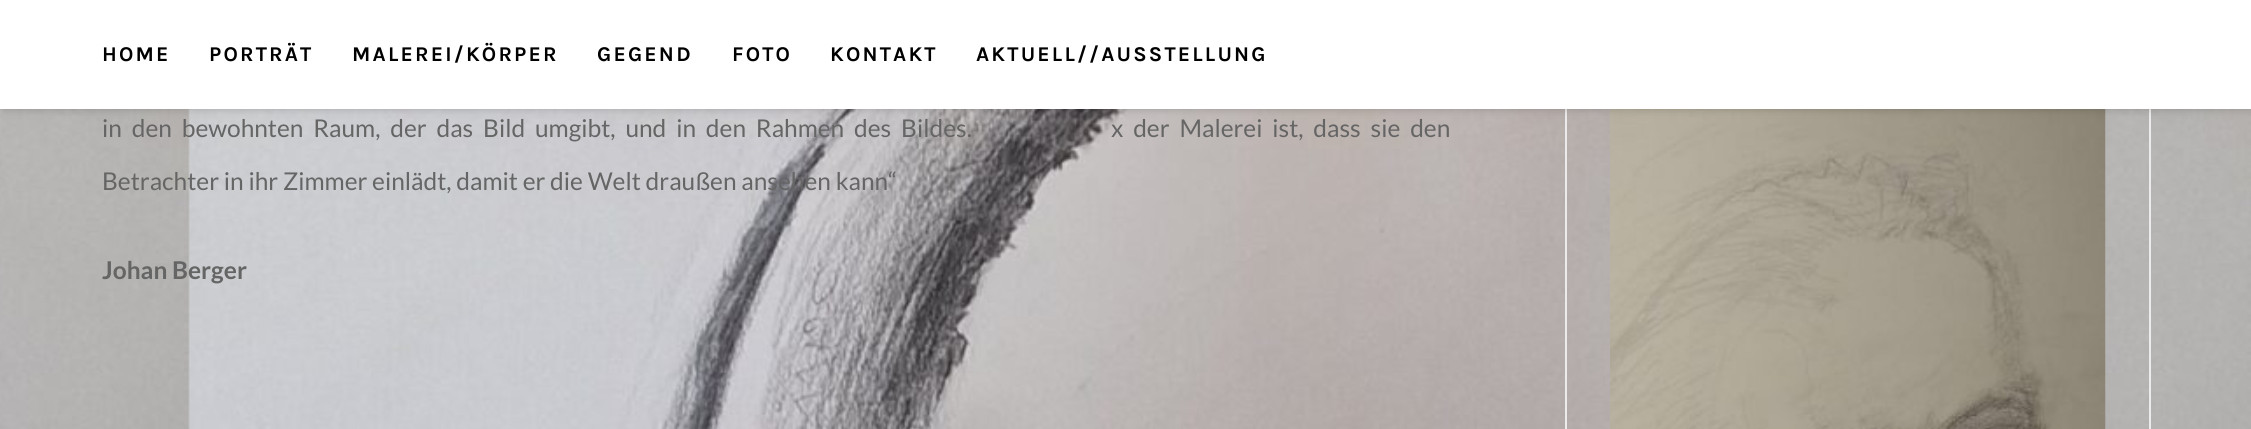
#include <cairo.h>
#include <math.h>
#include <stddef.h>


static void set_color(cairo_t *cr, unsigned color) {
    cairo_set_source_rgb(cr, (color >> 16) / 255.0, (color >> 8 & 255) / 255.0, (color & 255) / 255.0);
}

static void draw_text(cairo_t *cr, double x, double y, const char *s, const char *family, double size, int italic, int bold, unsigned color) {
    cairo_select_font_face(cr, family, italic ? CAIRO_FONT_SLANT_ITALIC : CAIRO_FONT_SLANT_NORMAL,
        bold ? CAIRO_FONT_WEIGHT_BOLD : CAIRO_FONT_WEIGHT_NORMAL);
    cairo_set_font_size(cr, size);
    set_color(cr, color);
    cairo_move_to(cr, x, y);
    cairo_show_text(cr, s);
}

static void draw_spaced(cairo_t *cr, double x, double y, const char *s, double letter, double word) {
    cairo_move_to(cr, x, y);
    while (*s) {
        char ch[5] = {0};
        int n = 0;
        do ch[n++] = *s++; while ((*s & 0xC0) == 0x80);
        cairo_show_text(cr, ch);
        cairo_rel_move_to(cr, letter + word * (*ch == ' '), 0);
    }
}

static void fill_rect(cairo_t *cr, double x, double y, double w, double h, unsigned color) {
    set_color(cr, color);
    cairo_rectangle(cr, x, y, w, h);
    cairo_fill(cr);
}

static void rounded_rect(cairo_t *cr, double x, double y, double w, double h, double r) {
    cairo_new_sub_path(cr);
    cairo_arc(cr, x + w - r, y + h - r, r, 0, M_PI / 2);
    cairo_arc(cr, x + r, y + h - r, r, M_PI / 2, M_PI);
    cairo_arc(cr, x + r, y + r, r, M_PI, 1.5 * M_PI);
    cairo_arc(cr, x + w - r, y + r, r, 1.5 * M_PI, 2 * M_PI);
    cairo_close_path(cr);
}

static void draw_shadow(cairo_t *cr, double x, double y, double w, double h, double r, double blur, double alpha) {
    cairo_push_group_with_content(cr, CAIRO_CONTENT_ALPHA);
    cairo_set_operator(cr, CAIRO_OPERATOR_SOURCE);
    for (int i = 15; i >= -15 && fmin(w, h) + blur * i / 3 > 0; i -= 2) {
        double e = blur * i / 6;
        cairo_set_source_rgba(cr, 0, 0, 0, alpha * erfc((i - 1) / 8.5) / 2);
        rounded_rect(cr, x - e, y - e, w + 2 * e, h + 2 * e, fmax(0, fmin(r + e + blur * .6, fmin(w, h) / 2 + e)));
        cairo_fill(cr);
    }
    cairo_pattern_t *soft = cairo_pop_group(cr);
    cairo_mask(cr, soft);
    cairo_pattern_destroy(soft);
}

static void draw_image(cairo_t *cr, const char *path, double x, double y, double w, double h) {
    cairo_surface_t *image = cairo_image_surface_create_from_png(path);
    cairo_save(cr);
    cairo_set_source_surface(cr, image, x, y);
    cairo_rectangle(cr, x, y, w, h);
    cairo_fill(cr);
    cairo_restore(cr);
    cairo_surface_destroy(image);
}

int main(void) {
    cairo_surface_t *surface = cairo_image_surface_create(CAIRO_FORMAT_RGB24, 2251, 429);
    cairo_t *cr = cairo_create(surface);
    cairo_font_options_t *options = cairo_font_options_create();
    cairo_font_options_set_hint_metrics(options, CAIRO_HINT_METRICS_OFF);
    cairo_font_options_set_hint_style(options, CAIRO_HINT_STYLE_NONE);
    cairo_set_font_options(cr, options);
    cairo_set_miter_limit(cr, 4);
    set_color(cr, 0xFFFFFF);
    cairo_paint(cr);
    draw_image(cr, "assets/img1.png", 0, 109, 2251, 320);
    cairo_rectangle(cr, 1566, -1, 584, 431);
    set_color(cr, 0xEBEBEB);
    cairo_stroke(cr);
    draw_image(cr, "assets/img2.png", 1610, 109, 496, 320);
    set_color(cr, 0x000000);
    draw_shadow(cr, 4, 0, 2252, 109, 0, 4.5, 0.2);
    fill_rect(cr, 0, 0, 2251, 109, 0xFFFFFF);
    cairo_select_font_face(cr, "Karla", CAIRO_FONT_SLANT_NORMAL, CAIRO_FONT_WEIGHT_BOLD);
    cairo_set_font_size(cr, 21);
    set_color(cr, 0x000000);
    draw_spaced(cr, 102, 61, "HOME", 2.2, 0);
    draw_spaced(cr, 209, 61, "PORTRÄT", 2.2, 0);
    draw_spaced(cr, 352, 61, "MALEREI/KÖRPER", 2.2, 0);
    draw_spaced(cr, 597, 61, "GEGEND", 2.2, 0);
    draw_spaced(cr, 732, 61, "FOTO", 2.2, 0);
    draw_spaced(cr, 830, 61, "KONTAKT", 2.2, 0);
    draw_spaced(cr, 976, 61, "AKTUELL//AUSSTELLUNG", 2.2, 0);
    cairo_select_font_face(cr, "Lato", CAIRO_FONT_SLANT_NORMAL, CAIRO_FONT_WEIGHT_NORMAL);
    cairo_set_font_size(cr, 24.5);
    set_color(cr, 0x656565);
    draw_spaced(cr, 102, 137, "in den bewohnten Raum, der das Bild umgibt, und in den Rahmen des Bildes.", 0, 5.1);
    draw_spaced(cr, 1111, 137, "x der Malerei ist, dass sie den", 0, 5.1);
    draw_text(cr, 102, 190, "Betrachter in ihr Zimmer einlädt, damit er die Welt draußen ansehen kann“", "Lato", 24.5, 0, 0, 0x656565);
    draw_text(cr, 102, 279, "Johan Berger", "Lato", 24.5, 0, 1, 0x656565);
    cairo_surface_write_to_png(surface, "output.png");
    cairo_font_options_destroy(options);
    cairo_destroy(cr);
    cairo_surface_destroy(surface);
    return 0;
}
